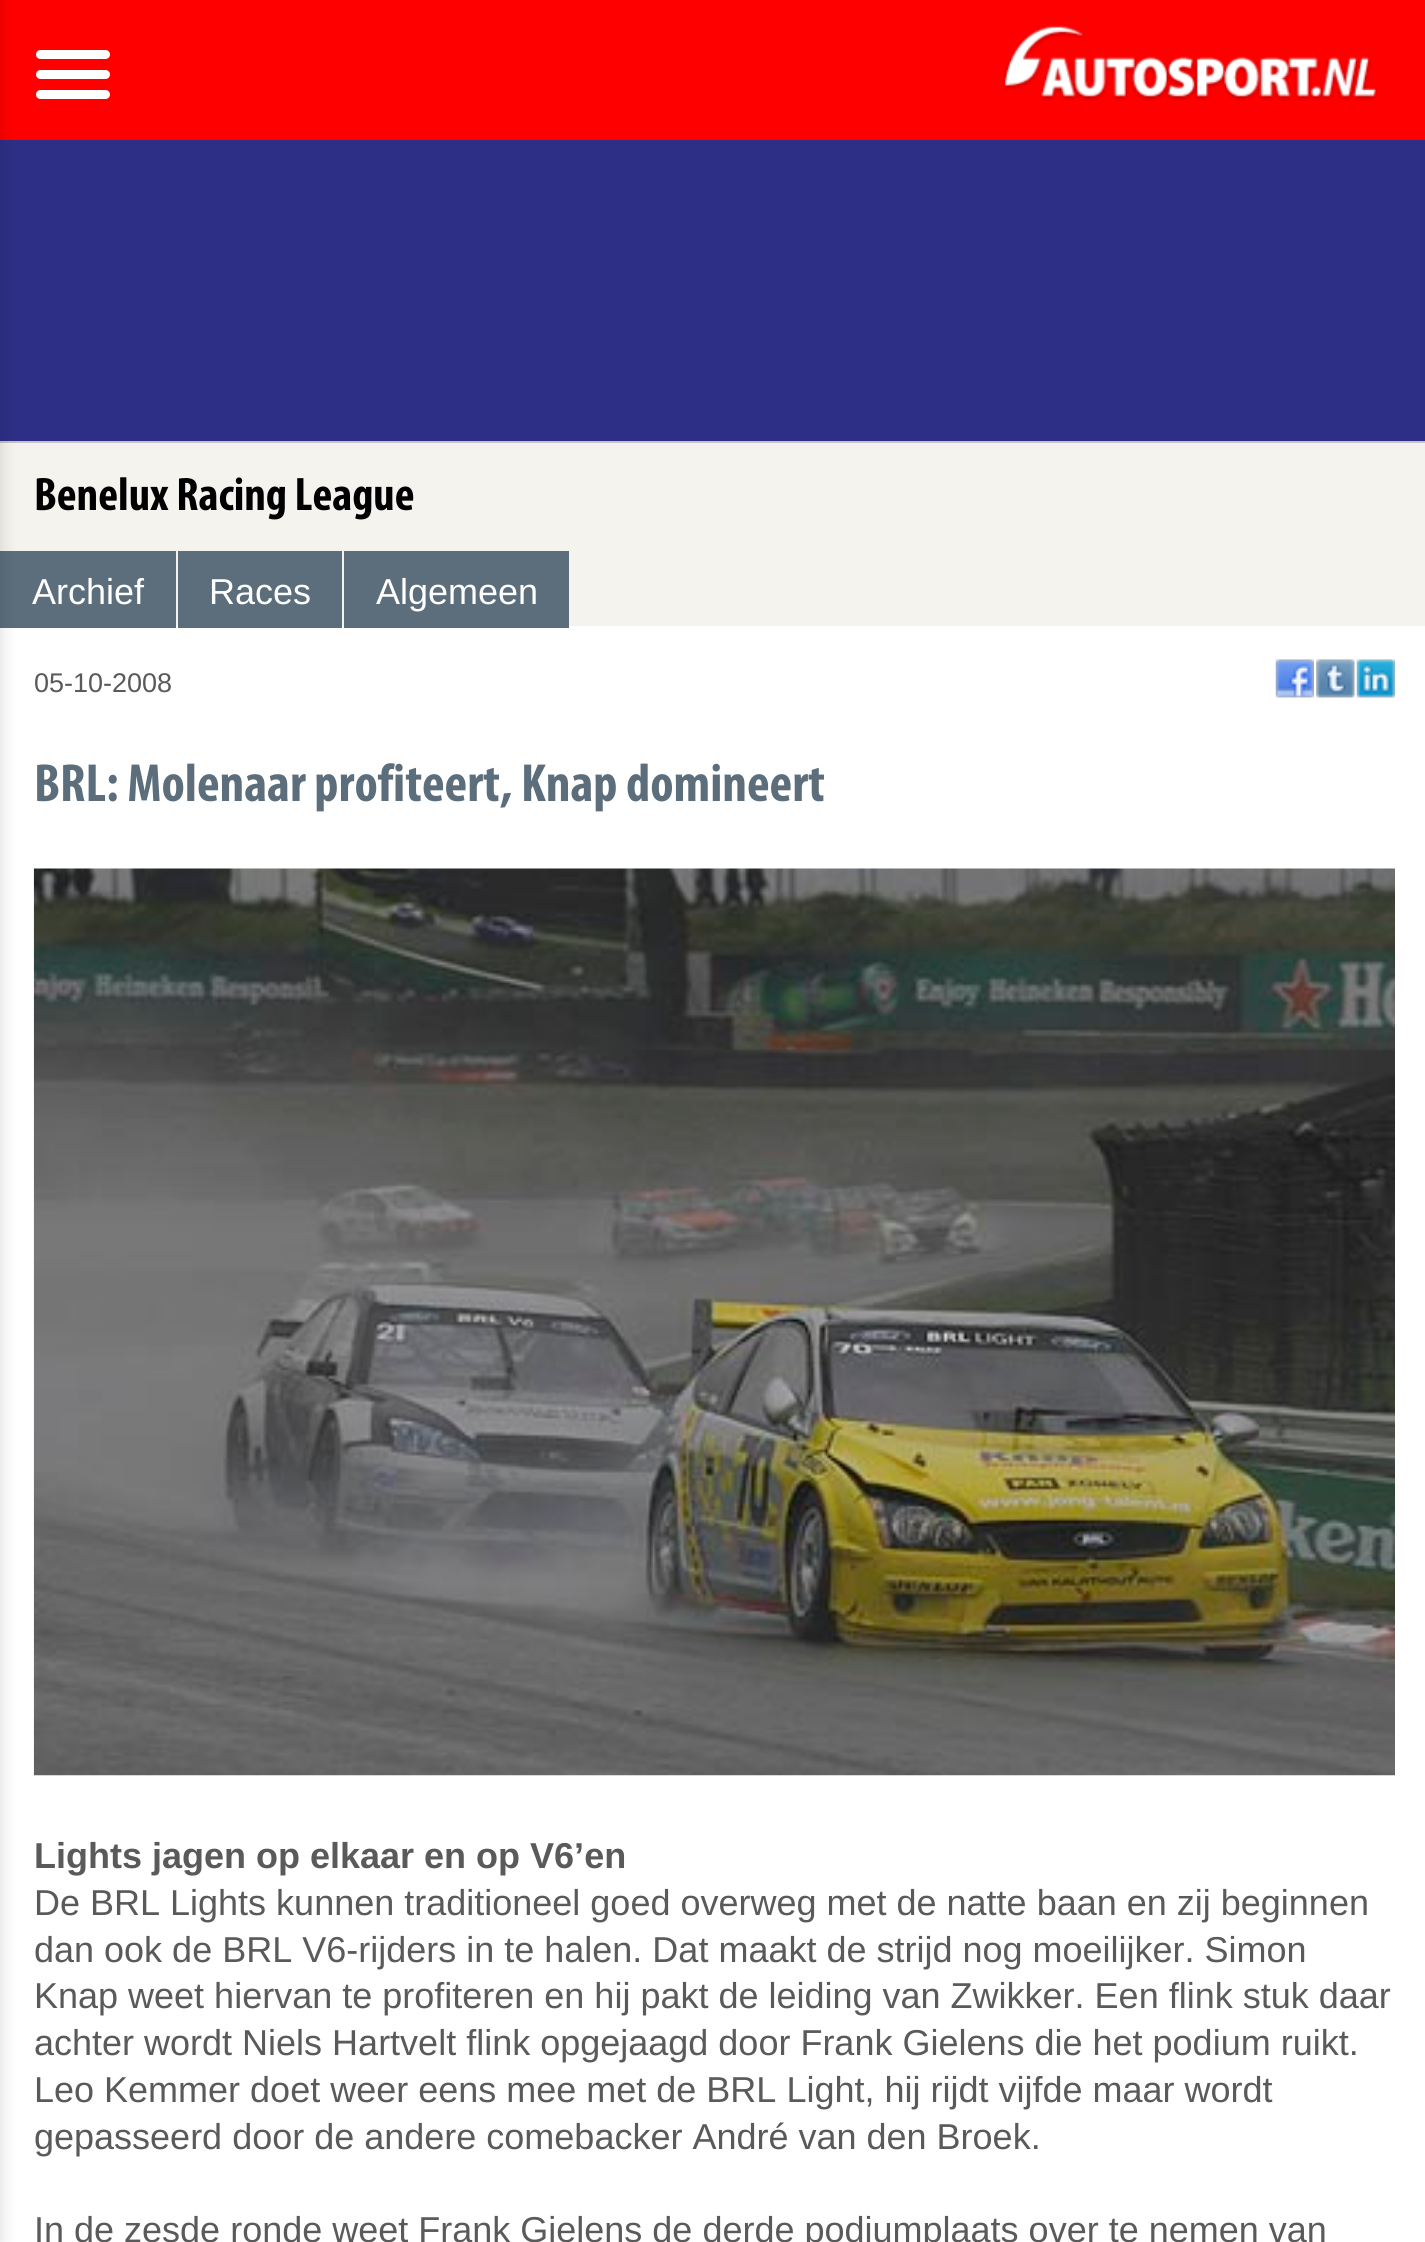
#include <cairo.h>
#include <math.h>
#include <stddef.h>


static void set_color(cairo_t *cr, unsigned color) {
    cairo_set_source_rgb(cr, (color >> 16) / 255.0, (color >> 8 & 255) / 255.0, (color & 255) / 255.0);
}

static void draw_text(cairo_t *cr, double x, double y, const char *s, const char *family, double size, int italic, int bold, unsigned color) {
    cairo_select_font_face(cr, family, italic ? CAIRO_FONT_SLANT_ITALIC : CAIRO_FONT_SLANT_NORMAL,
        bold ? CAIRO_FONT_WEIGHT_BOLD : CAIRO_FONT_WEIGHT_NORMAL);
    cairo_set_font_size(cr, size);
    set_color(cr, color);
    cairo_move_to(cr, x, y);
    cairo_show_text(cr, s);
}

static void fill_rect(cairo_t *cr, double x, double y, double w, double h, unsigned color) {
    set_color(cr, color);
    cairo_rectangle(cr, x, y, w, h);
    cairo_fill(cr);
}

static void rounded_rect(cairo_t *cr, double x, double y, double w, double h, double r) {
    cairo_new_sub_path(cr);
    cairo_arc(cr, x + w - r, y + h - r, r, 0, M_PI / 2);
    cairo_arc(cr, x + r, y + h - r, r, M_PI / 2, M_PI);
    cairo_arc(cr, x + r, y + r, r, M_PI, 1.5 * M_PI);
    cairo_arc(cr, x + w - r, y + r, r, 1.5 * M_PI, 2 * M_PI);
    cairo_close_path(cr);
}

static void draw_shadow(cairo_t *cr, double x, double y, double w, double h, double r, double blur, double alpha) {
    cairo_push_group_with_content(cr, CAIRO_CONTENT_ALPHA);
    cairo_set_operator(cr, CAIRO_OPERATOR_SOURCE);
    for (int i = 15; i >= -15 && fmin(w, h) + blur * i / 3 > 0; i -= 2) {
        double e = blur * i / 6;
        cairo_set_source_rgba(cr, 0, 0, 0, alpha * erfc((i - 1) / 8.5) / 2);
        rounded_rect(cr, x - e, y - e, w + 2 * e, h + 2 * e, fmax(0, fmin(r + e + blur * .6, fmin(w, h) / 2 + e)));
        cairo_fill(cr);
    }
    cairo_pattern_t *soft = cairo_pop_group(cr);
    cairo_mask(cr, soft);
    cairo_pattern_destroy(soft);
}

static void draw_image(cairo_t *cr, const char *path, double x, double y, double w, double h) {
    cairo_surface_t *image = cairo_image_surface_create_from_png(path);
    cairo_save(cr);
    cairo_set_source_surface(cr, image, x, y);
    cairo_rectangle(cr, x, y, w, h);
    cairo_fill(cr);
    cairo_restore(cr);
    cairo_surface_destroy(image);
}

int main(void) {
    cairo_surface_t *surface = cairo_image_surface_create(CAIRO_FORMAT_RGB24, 1425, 2242);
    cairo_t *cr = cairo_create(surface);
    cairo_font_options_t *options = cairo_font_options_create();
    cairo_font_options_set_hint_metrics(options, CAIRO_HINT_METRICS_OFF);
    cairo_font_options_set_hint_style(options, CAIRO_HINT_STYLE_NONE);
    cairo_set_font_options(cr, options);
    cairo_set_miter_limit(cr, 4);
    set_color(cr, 0xF4F3ED);
    cairo_paint(cr);
    fill_rect(cr, 0, 0, 1425, 140, 0xFF0000);
    draw_image(cr, "assets/img1.png", 1002, 25, 376, 76);
    fill_rect(cr, 0, 441, 1425, 2, 0xC4C4C4);
    fill_rect(cr, 0, 140, 1425, 301, 0x2D2F86);
    fill_rect(cr, 0, 626, 1425, 1616, 0xFFFFFF);
    fill_rect(cr, 0, 551, 176, 77, 0x5C6E7B);
    set_color(cr, 0x000000);
    draw_shadow(cr, -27, 0, 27, 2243, 0, 9, 0.15);
    set_color(cr, 0xFFFFFF);
    rounded_rect(cr, 36, 50, 74, 9, 4.5);
    cairo_fill(cr);
    rounded_rect(cr, 36, 70, 74, 9, 4.5);
    cairo_fill(cr);
    rounded_rect(cr, 36, 90, 74, 9, 4.5);
    cairo_fill(cr);
    draw_text(cr, 34, 510, "Benelux Racing League", "Myriad", 47.25, 0, 1, 0x000000);
    draw_text(cr, 32, 604, "Archief", "Liberation Sans", 36, 0, 0, 0xFFFFFF);
    fill_rect(cr, 178, 551, 164, 77, 0x5C6E7B);
    draw_text(cr, 209, 604, "Races", "Liberation Sans", 36, 0, 0, 0xFFFFFF);
    fill_rect(cr, 344, 551, 225, 77, 0x5C6E7B);
    draw_text(cr, 376, 604, "Algemeen", "Liberation Sans", 36, 0, 0, 0xFFFFFF);
    draw_text(cr, 34, 692, "05-10-2008", "Liberation Sans", 27, 0, 0, 0x5A5A5A);
    draw_image(cr, "assets/img2.png", 1275, 659, 39, 39);
    draw_image(cr, "assets/img3.png", 1316, 659, 39, 39);
    draw_image(cr, "assets/img4.png", 1356, 659, 39, 39);
    draw_text(cr, 34, 801, "BRL: Molenaar profiteert, Knap domineert", "Myriad", 54, 0, 1, 0x5C6E7B);
    draw_image(cr, "assets/img5.png", 33, 868, 1362, 908);
    draw_text(cr, 34, 1868, "Lights jagen op elkaar en op V6’en", "Liberation Sans", 36, 0, 1, 0x5A5A5A);
    draw_text(cr, 34, 1915, "De BRL Lights kunnen traditioneel goed overweg met de natte baan en zij beginnen", "Liberation Sans", 36, 0, 0, 0x5A5A5A);
    draw_text(cr, 34, 1962, "dan ook de BRL V6-rijders in te halen. Dat maakt de strijd nog moeilijker. Simon", "Liberation Sans", 36, 0, 0, 0x5A5A5A);
    draw_text(cr, 34, 2008, "Knap weet hiervan te profiteren en hij pakt de leiding van Zwikker. Een flink stuk daar", "Liberation Sans", 36, 0, 0, 0x5A5A5A);
    draw_text(cr, 34, 2055, "achter wordt Niels Hartvelt flink opgejaagd door Frank Gielens die het podium ruikt.", "Liberation Sans", 36, 0, 0, 0x5A5A5A);
    draw_text(cr, 34, 2102, "Leo Kemmer doet weer eens mee met de BRL Light, hij rijdt vijfde maar wordt", "Liberation Sans", 36, 0, 0, 0x5A5A5A);
    draw_text(cr, 34, 2149, "gepasseerd door de andere comebacker André van den Broek.", "Liberation Sans", 36, 0, 0, 0x5A5A5A);
    draw_text(cr, 34, 2242, "In de zesde ronde weet Frank Gielens de derde podiumplaats over te nemen van", "Liberation Sans", 36, 0, 0, 0x5A5A5A);
    cairo_surface_write_to_png(surface, "output.png");
    cairo_font_options_destroy(options);
    cairo_destroy(cr);
    cairo_surface_destroy(surface);
    return 0;
}
